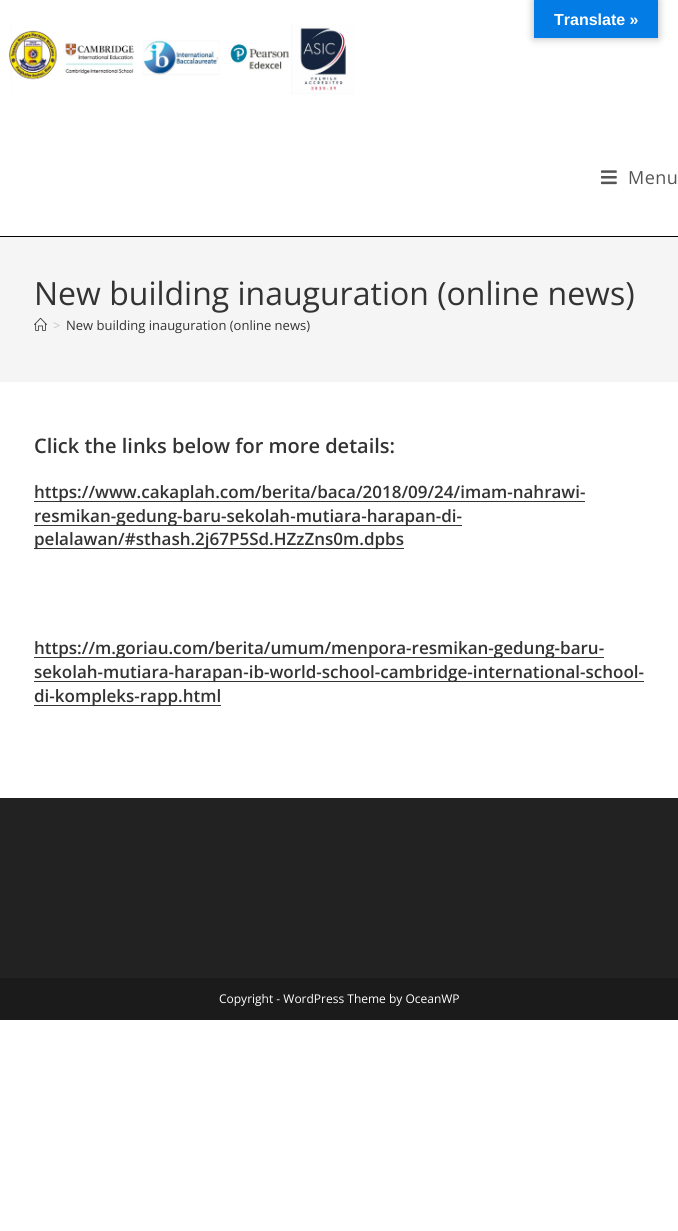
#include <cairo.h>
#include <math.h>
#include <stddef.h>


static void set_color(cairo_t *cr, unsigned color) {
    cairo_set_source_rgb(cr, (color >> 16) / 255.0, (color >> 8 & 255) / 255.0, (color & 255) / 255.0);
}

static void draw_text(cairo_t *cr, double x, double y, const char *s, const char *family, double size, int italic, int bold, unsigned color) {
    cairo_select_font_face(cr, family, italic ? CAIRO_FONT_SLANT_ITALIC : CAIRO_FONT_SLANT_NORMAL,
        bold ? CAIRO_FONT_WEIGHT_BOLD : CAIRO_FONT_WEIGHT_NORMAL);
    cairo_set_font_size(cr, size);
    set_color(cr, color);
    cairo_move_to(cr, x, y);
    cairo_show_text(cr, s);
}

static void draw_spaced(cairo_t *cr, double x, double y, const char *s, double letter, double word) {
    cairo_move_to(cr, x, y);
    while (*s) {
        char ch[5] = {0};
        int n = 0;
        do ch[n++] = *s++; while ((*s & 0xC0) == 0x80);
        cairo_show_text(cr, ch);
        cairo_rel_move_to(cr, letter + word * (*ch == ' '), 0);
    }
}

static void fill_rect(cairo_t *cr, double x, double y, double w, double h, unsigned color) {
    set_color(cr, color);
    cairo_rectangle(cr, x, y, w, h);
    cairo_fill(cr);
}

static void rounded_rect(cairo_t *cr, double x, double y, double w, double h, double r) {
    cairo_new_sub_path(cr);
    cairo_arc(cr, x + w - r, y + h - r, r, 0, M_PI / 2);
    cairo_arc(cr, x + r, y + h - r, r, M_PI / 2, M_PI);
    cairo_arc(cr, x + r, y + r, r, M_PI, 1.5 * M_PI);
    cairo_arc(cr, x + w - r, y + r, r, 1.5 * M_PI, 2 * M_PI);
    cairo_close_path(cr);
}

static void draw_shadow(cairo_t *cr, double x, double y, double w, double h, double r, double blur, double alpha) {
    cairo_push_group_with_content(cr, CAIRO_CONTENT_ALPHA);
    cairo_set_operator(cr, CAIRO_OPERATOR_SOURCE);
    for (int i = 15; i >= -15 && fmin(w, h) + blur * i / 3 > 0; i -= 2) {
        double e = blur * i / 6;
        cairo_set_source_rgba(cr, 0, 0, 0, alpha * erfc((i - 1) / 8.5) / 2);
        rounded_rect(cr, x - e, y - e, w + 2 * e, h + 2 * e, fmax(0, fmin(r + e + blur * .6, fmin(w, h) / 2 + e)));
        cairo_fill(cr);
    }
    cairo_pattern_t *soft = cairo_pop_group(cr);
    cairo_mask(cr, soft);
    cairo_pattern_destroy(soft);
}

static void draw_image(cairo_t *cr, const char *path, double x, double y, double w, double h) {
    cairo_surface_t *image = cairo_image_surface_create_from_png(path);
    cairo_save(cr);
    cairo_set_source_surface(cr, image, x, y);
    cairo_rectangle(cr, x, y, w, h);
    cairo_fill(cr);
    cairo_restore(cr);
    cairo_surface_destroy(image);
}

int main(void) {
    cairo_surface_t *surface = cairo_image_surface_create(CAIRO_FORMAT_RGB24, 678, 1231);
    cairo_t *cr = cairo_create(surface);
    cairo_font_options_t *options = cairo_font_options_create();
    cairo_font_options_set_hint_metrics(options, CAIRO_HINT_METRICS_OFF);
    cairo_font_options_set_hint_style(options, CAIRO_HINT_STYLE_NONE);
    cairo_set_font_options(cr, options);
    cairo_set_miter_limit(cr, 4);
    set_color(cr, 0xFFFFFF);
    cairo_paint(cr);
    set_color(cr, 0x000000);
    draw_shadow(cr, 534, 0, 124, 38, 0, 4.5, 0.3);
    fill_rect(cr, 534, 0, 124, 38, 0x047CE5);
    draw_text(cr, 554, 25, "Translate »", "Liberation Sans", 16, 0, 1, 0xFFFFFF);
    fill_rect(cr, 0, 236, 678, 1, 0x000000);
    draw_image(cr, "assets/img1.png", 9, 23, 346, 71);
    draw_image(cr, "assets/img2.png", 601, 170, 16, 15);
    cairo_select_font_face(cr, "Open Sans", CAIRO_FONT_SLANT_NORMAL, CAIRO_FONT_WEIGHT_NORMAL);
    cairo_set_font_size(cr, 18);
    set_color(cr, 0x555555);
    draw_spaced(cr, 628, 184, "Menu", 0.5, 0);
    fill_rect(cr, 0, 237, 678, 145, 0xF5F5F5);
    draw_text(cr, 34, 305, "New building inauguration (online news)", "Open Sans", 32, 0, 0, 0x333333);
    draw_image(cr, "assets/img3.png", 34, 317, 13, 14);
    draw_text(cr, 53, 330, ">", "Open Sans", 13, 0, 0, 0xC6C6C6);
    draw_text(cr, 66, 330, "New building inauguration (online news)", "Open Sans", 13, 0, 0, 0x333333);
    draw_text(cr, 34, 453, "Click the links below for more details:", "Open Sans SemiBold", 20, 0, 0, 0x333333);
    fill_rect(cr, 34, 501, 551, 1, 0x333333);
    draw_text(cr, 34, 498, "https://www.cakaplah.com/berita/baca/2018/09/24/imam-nahrawi-", "Open Sans SemiBold", 17, 0, 0, 0x333333);
    fill_rect(cr, 34, 525, 428, 1, 0x333333);
    draw_text(cr, 34, 522, "resmikan-gedung-baru-sekolah-mutiara-harapan-di-", "Open Sans SemiBold", 17, 0, 0, 0x333333);
    fill_rect(cr, 34, 548, 370, 1, 0x333333);
    draw_text(cr, 34, 545, "pelalawan/#sthash.2j67P5Sd.HZzZns0m.dpbs", "Open Sans SemiBold", 17, 0, 0, 0x333333);
    fill_rect(cr, 34, 657, 570, 1, 0x333333);
    draw_text(cr, 34, 654, "https://m.goriau.com/berita/umum/menpora-resmikan-gedung-baru-", "Open Sans SemiBold", 17, 0, 0, 0x333333);
    fill_rect(cr, 34, 681, 610, 1, 0x333333);
    draw_text(cr, 34, 678, "sekolah-mutiara-harapan-ib-world-school-cambridge-international-school-", "Open Sans SemiBold", 17, 0, 0, 0x333333);
    fill_rect(cr, 34, 705, 187, 1, 0x333333);
    draw_text(cr, 34, 702, "di-kompleks-rapp.html", "Open Sans SemiBold", 17, 0, 0, 0x333333);
    fill_rect(cr, 0, 798, 678, 180, 0x222222);
    fill_rect(cr, 0, 978, 678, 42, 0x1B1B1B);
    draw_text(cr, 219, 1003, "Copyright - WordPress Theme by OceanWP", "Open Sans", 12, 0, 0, 0xFFFFFF);
    cairo_surface_write_to_png(surface, "output.png");
    cairo_font_options_destroy(options);
    cairo_destroy(cr);
    cairo_surface_destroy(surface);
    return 0;
}
